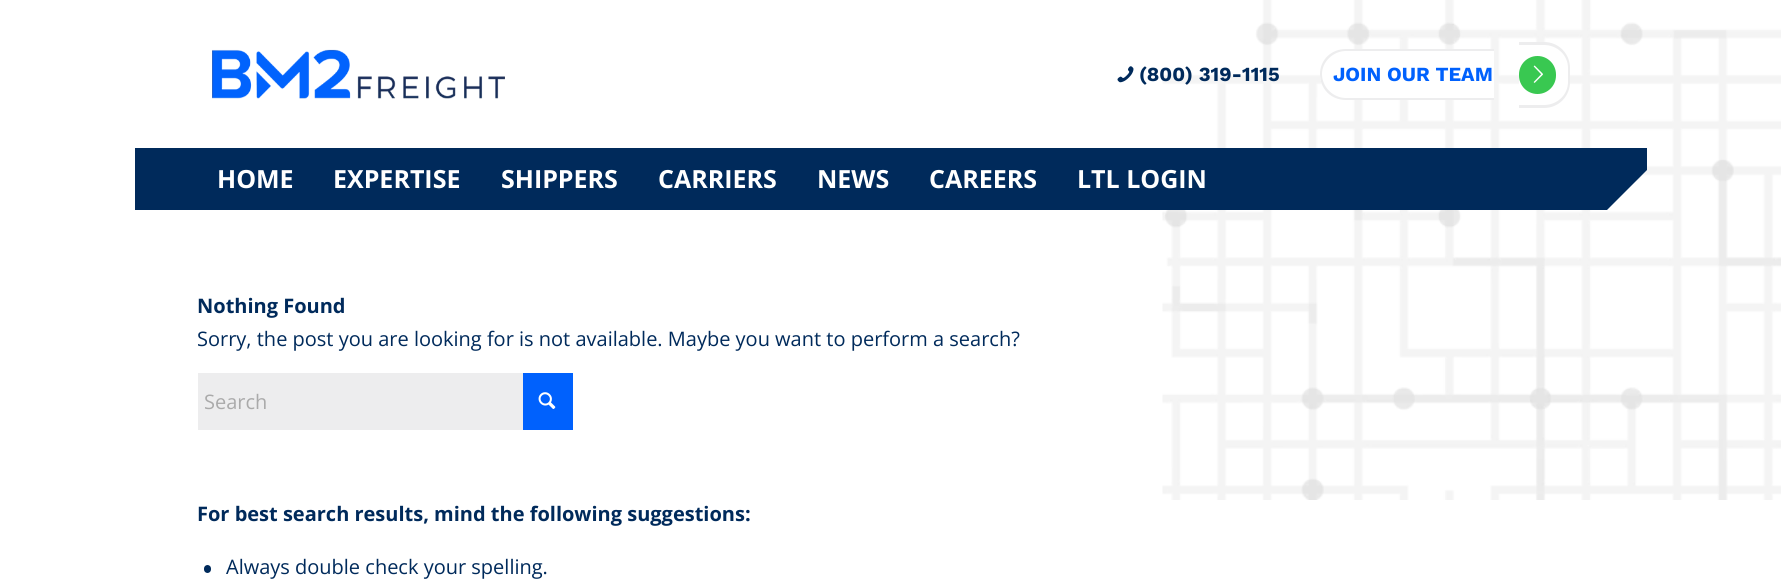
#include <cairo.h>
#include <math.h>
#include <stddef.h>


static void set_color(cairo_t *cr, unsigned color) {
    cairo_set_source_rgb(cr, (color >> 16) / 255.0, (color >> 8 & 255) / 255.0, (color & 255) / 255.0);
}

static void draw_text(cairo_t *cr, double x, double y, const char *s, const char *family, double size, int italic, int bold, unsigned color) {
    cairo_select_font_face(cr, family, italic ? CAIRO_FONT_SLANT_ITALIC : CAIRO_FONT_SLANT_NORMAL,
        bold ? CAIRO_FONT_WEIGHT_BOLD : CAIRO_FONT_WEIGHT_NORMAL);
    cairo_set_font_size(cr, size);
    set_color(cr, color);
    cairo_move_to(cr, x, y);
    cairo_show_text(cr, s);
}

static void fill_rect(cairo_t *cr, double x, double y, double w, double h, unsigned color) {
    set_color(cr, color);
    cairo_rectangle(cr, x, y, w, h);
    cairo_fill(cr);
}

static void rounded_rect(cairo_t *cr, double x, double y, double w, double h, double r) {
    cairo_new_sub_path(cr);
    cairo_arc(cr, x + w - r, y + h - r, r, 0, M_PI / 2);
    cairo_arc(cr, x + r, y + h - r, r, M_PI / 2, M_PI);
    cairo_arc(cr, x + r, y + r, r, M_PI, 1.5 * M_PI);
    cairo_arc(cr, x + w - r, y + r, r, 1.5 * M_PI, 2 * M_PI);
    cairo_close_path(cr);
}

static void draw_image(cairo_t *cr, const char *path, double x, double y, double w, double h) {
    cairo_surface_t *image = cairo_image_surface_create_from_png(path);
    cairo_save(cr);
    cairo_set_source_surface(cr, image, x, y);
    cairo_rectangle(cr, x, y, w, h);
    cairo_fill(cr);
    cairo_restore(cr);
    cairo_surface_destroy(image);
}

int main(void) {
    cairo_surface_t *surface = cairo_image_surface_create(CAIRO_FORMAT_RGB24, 1781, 582);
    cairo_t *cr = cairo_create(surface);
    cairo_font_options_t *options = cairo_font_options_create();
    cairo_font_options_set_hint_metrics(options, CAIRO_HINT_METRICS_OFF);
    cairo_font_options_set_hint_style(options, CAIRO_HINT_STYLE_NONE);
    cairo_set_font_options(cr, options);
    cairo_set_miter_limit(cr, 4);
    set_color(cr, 0xFFFFFF);
    cairo_paint(cr);
    draw_image(cr, "assets/img1.png", 1162, 0, 619, 500);
    draw_image(cr, "assets/img2.png", 212, 49, 293, 50);
    draw_image(cr, "assets/img3.png", 1117, 66, 17, 17);
    draw_text(cr, 1139, 81, "(800) 319-1115", "Work Sans", 20, 0, 1, 0x002A5B);
    set_color(cr, 0xFFFFFF);
    cairo_new_path(cr);
    cairo_move_to(cr, 1345.5, 49);
    cairo_line_to(cr, 1494, 49);
    cairo_line_to(cr, 1494, 100);
    cairo_line_to(cr, 1345.5, 100);
    cairo_curve_to(cr, 1331.5, 100, 1320, 88.5, 1320, 74.5);
    cairo_curve_to(cr, 1320, 60.5, 1331.5, 49, 1345.5, 49);
    cairo_close_path(cr);
    cairo_fill(cr);
    set_color(cr, 0xEDEDEE);
    cairo_set_fill_rule(cr, CAIRO_FILL_RULE_EVEN_ODD);
    cairo_new_path(cr);
    cairo_move_to(cr, 1346, 49);
    cairo_line_to(cr, 1494, 49);
    cairo_line_to(cr, 1494, 100);
    cairo_line_to(cr, 1346, 100);
    cairo_curve_to(cr, 1331, 100, 1320, 89, 1320, 74);
    cairo_curve_to(cr, 1320, 60, 1331, 49, 1346, 49);
    cairo_close_path(cr);
    cairo_move_to(cr, 1346, 51);
    cairo_line_to(cr, 1494, 51);
    cairo_line_to(cr, 1494, 98);
    cairo_line_to(cr, 1346, 98);
    cairo_curve_to(cr, 1333, 98, 1322, 87, 1322, 74);
    cairo_curve_to(cr, 1322, 62, 1333, 51, 1346, 51);
    cairo_close_path(cr);
    cairo_fill(cr);
    set_color(cr, 0xFFFFFF);
    cairo_new_path(cr);
    cairo_move_to(cr, 1519, 43);
    cairo_line_to(cr, 1544.5, 43);
    cairo_curve_to(cr, 1558.5, 43, 1570, 54.5, 1570, 68.5);
    cairo_line_to(cr, 1570, 82.5);
    cairo_curve_to(cr, 1570, 96.5, 1558.5, 108, 1544.5, 108);
    cairo_line_to(cr, 1519, 108);
    cairo_close_path(cr);
    cairo_fill(cr);
    set_color(cr, 0xEDEDEE);
    cairo_new_path(cr);
    cairo_move_to(cr, 1519, 42);
    cairo_line_to(cr, 1544, 42);
    cairo_curve_to(cr, 1559, 42, 1570, 54, 1570, 68);
    cairo_line_to(cr, 1570, 82);
    cairo_curve_to(cr, 1570, 96, 1559, 108, 1544, 108);
    cairo_line_to(cr, 1519, 108);
    cairo_close_path(cr);
    cairo_move_to(cr, 1519, 45);
    cairo_line_to(cr, 1544, 45);
    cairo_curve_to(cr, 1557, 45, 1568, 55, 1568, 68);
    cairo_line_to(cr, 1568, 82);
    cairo_curve_to(cr, 1568, 95, 1557, 105, 1544, 105);
    cairo_line_to(cr, 1519, 105);
    cairo_close_path(cr);
    cairo_fill(cr);
    draw_text(cr, 1333, 81, "JOIN OUR TEAM", "Work Sans", 20, 0, 1, 0x0061FD);
    set_color(cr, 0x39C851);
    rounded_rect(cr, 1519, 56, 37, 38, 18.5);
    cairo_fill(cr);
    draw_image(cr, "assets/img4.png", 1533, 65, 10, 18);
    set_color(cr, 0x002A5B);
    cairo_set_fill_rule(cr, CAIRO_FILL_RULE_WINDING);
    cairo_new_path(cr);
    cairo_move_to(cr, 135, 148);
    cairo_line_to(cr, 135, 210);
    cairo_line_to(cr, 1607, 210);
    cairo_line_to(cr, 1647, 170);
    cairo_line_to(cr, 1647, 148);
    cairo_close_path(cr);
    cairo_fill(cr);
    draw_text(cr, 217, 188, "HOME", "Open Sans", 25, 0, 1, 0xFFFFFF);
    draw_text(cr, 333, 188, "EXPERTISE", "Open Sans", 25, 0, 1, 0xFFFFFF);
    draw_text(cr, 501, 188, "SHIPPERS", "Open Sans", 25, 0, 1, 0xFFFFFF);
    draw_text(cr, 658, 188, "CARRIERS", "Open Sans", 25, 0, 1, 0xFFFFFF);
    draw_text(cr, 817, 188, "NEWS", "Open Sans", 25, 0, 1, 0xFFFFFF);
    draw_text(cr, 929, 188, "CAREERS", "Open Sans", 25, 0, 1, 0xFFFFFF);
    draw_text(cr, 1077, 188, "LTL LOGIN", "Open Sans", 25, 0, 1, 0xFFFFFF);
    draw_text(cr, 197, 313, "Nothing Found", "Open Sans", 20, 0, 1, 0x002A5B);
    draw_text(cr, 197, 346, "Sorry, the post you are looking for is not available. Maybe you want to perform a search?", "Open Sans", 20, 0, 0, 0x002A5B);
    fill_rect(cr, 523, 373, 50, 57, 0x0061FD);
    fill_rect(cr, 198, 373, 325, 57, 0xEDEDEE);
    draw_text(cr, 204, 409, "Search", "Open Sans", 20, 0, 0, 0xAAAAAA);
    draw_image(cr, "assets/img5.png", 538, 392, 18, 17);
    draw_text(cr, 197, 521, "For best search results, mind the following suggestions:", "Open Sans", 20, 0, 1, 0x002A5B);
    rounded_rect(cr, 204, 565, 7, 8, 3.5);
    cairo_fill(cr);
    draw_text(cr, 226, 574, "Always double check your spelling.", "Open Sans", 20, 0, 0, 0x002A5B);
    cairo_surface_write_to_png(surface, "output.png");
    cairo_font_options_destroy(options);
    cairo_destroy(cr);
    cairo_surface_destroy(surface);
    return 0;
}
